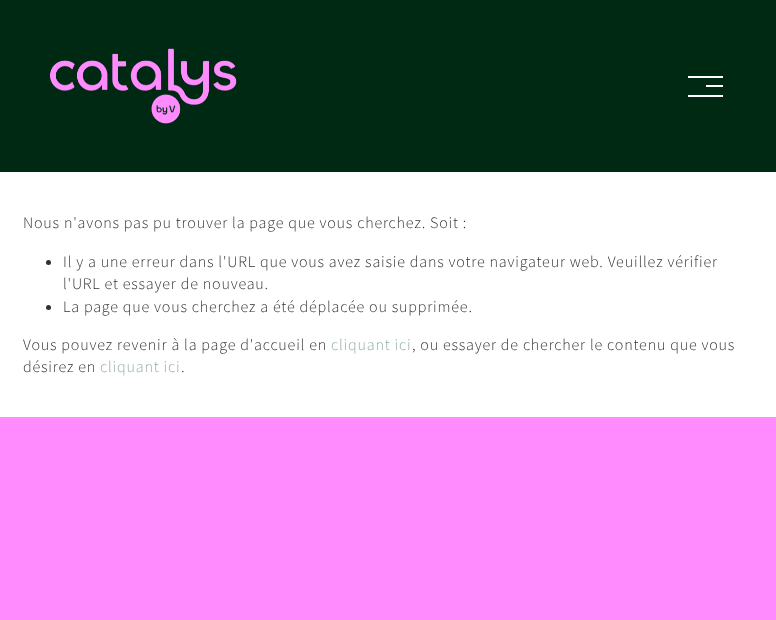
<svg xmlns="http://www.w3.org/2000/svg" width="776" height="620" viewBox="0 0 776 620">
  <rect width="100%" height="100%" fill="#fff"/>
  <path d="M0 0h776v172H0z" fill="#002913"/>
  <image x="49" y="48" width="188" height="76" href="img/1.png"/>
  <path d="M688 76h35v2H688z" fill="#fff"/>
  <path d="M706 85h17v2H706z" fill="#fff"/>
  <path d="M688 95h35v2H688z" fill="#fff"/>
  <circle cx="48.5" cy="262.5" r="2.5" fill="#343030"/>
  <circle cx="48.5" cy="307.5" r="2.5" fill="#343030"/>
  <path d="M0 417h776v203H0z" fill="#ff8bff"/>
  <g font-family="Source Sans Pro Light" font-size="16" font-weight="300" letter-spacing="0.8" fill="#343030">
    <text x="23" y="228">Nous n'avons pas pu trouver la page que vous cherchez. Soit :</text>
    <text x="63" y="267">Il y a une erreur dans l'URL que vous avez saisie dans votre navigateur web. Veuillez vérifier</text>
    <text x="63" y="289">l'URL et essayer de nouveau.</text>
    <text x="63" y="312">La page que vous cherchez a été déplacée ou supprimée.</text>
    <text x="23" y="350">Vous pouvez revenir à la page d'accueil en</text>
  </g>
  <text x="331" y="350" font-family="Source Sans Pro Light" font-size="16" font-weight="300" letter-spacing="0.8" fill="#8fada2">cliquant ici</text>
  <g font-family="Source Sans Pro Light" font-size="16" font-weight="300" letter-spacing="0.8" fill="#343030">
    <text x="412" y="350">, ou essayer de chercher le contenu que vous</text>
    <text x="23" y="372">désirez en</text>
  </g>
  <text x="100" y="372" font-family="Source Sans Pro Light" font-size="16" font-weight="300" letter-spacing="0.8" fill="#8fada2">cliquant ici</text>
  <text x="181" y="372" font-family="Source Sans Pro Light" font-size="16" font-weight="300" letter-spacing="0.8" fill="#343030">.</text>
</svg>
